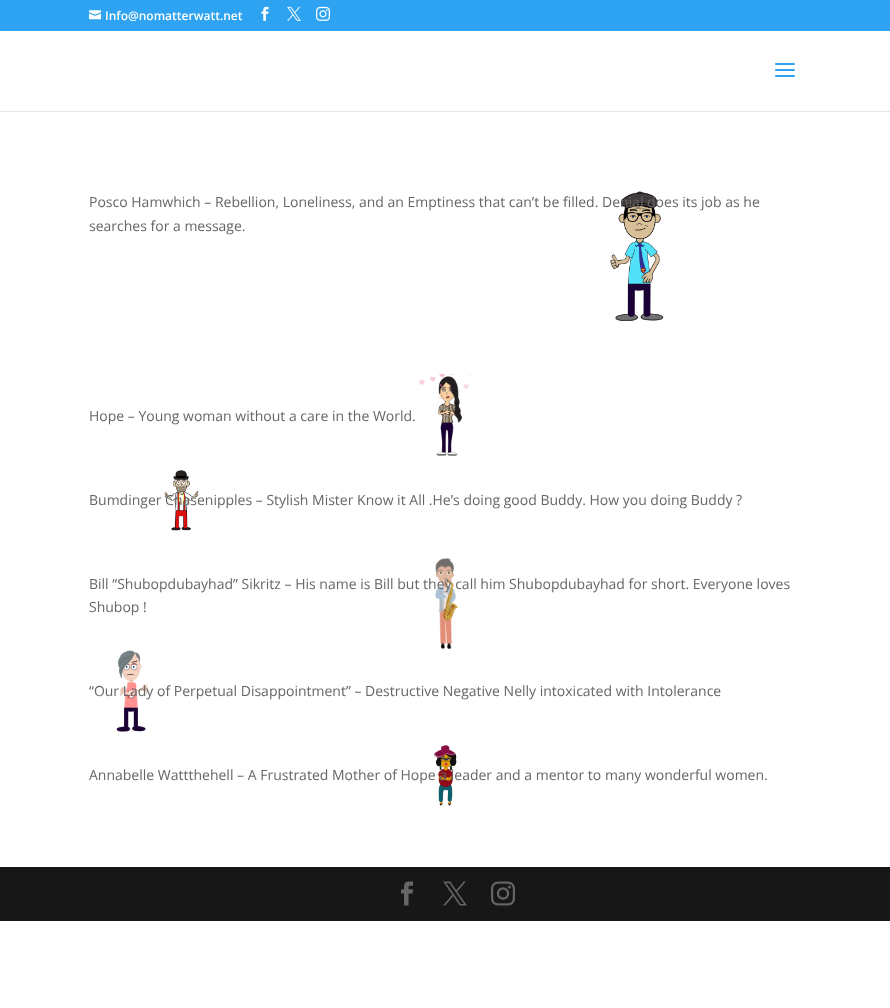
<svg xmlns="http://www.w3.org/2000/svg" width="890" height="1008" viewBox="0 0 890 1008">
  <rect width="100%" height="100%" fill="#fff"/>
  <path d="M0 0h890v31H0z" fill="#2ea3f2"/>
  <image x="89" y="10" width="12" height="10" href="img/1.png"/>
  <image x="261" y="6" width="8" height="15" href="img/2.png"/>
  <image x="287" y="6" width="14" height="15" href="img/3.png"/>
  <image x="316" y="6" width="14" height="15" href="img/4.png"/>
  <path d="M0 111h890v1H0z" fill="#e6e6e6"/>
  <image x="775" y="63" width="20" height="14" href="img/5.png"/>
  <image x="610" y="191" width="54" height="130" href="img/6.png"/>
  <image x="419" y="374" width="52" height="82" href="img/7.png"/>
  <image x="164" y="470" width="35" height="61" href="img/8.png"/>
  <image x="435" y="558" width="24" height="91" href="img/9.png"/>
  <image x="116" y="650" width="32" height="82" href="img/10.png"/>
  <image x="434" y="745" width="23" height="61" href="img/11.png"/>
  <path d="M0 867h890v54H0z" fill="#171717"/>
  <image x="401" y="881" width="12" height="25" href="img/12.png"/>
  <image x="443" y="881" width="24" height="25" href="img/13.png"/>
  <image x="491" y="881" width="24" height="25" href="img/14.png"/>
  <text x="105" y="20" font-family="Open Sans" font-size="12" font-weight="600" fill="#fff">Info@nomatterwatt.net</text>
  <g font-family="Open Sans" font-size="14" fill="#666">
    <text x="89" y="207">Posco Hamwhich – Rebellion, Loneliness, and an Emptiness that can’t be filled. Denial does its job as he</text>
    <text x="89" y="231">searches for a message.</text>
    <text x="89" y="421">Hope – Young woman without a care in the World.</text>
    <text x="89" y="505">Bumdinger Chasenipples – Stylish Mister Know it All .He’s doing good Buddy. How you doing Buddy ?</text>
    <text x="89" y="589">Bill “Shubopdubayhad” Sikritz – His name is Bill but they call him Shubopdubayhad for short. Everyone loves</text>
    <text x="89" y="612">Shubop !</text>
    <text x="89" y="696">“Our Lady of Perpetual Disappointment” – Destructive Negative Nelly intoxicated with Intolerance</text>
    <text x="89" y="780">Annabelle Wattthehell – A Frustrated Mother of Hope a leader and a mentor to many wonderful women.</text>
  </g>
</svg>
